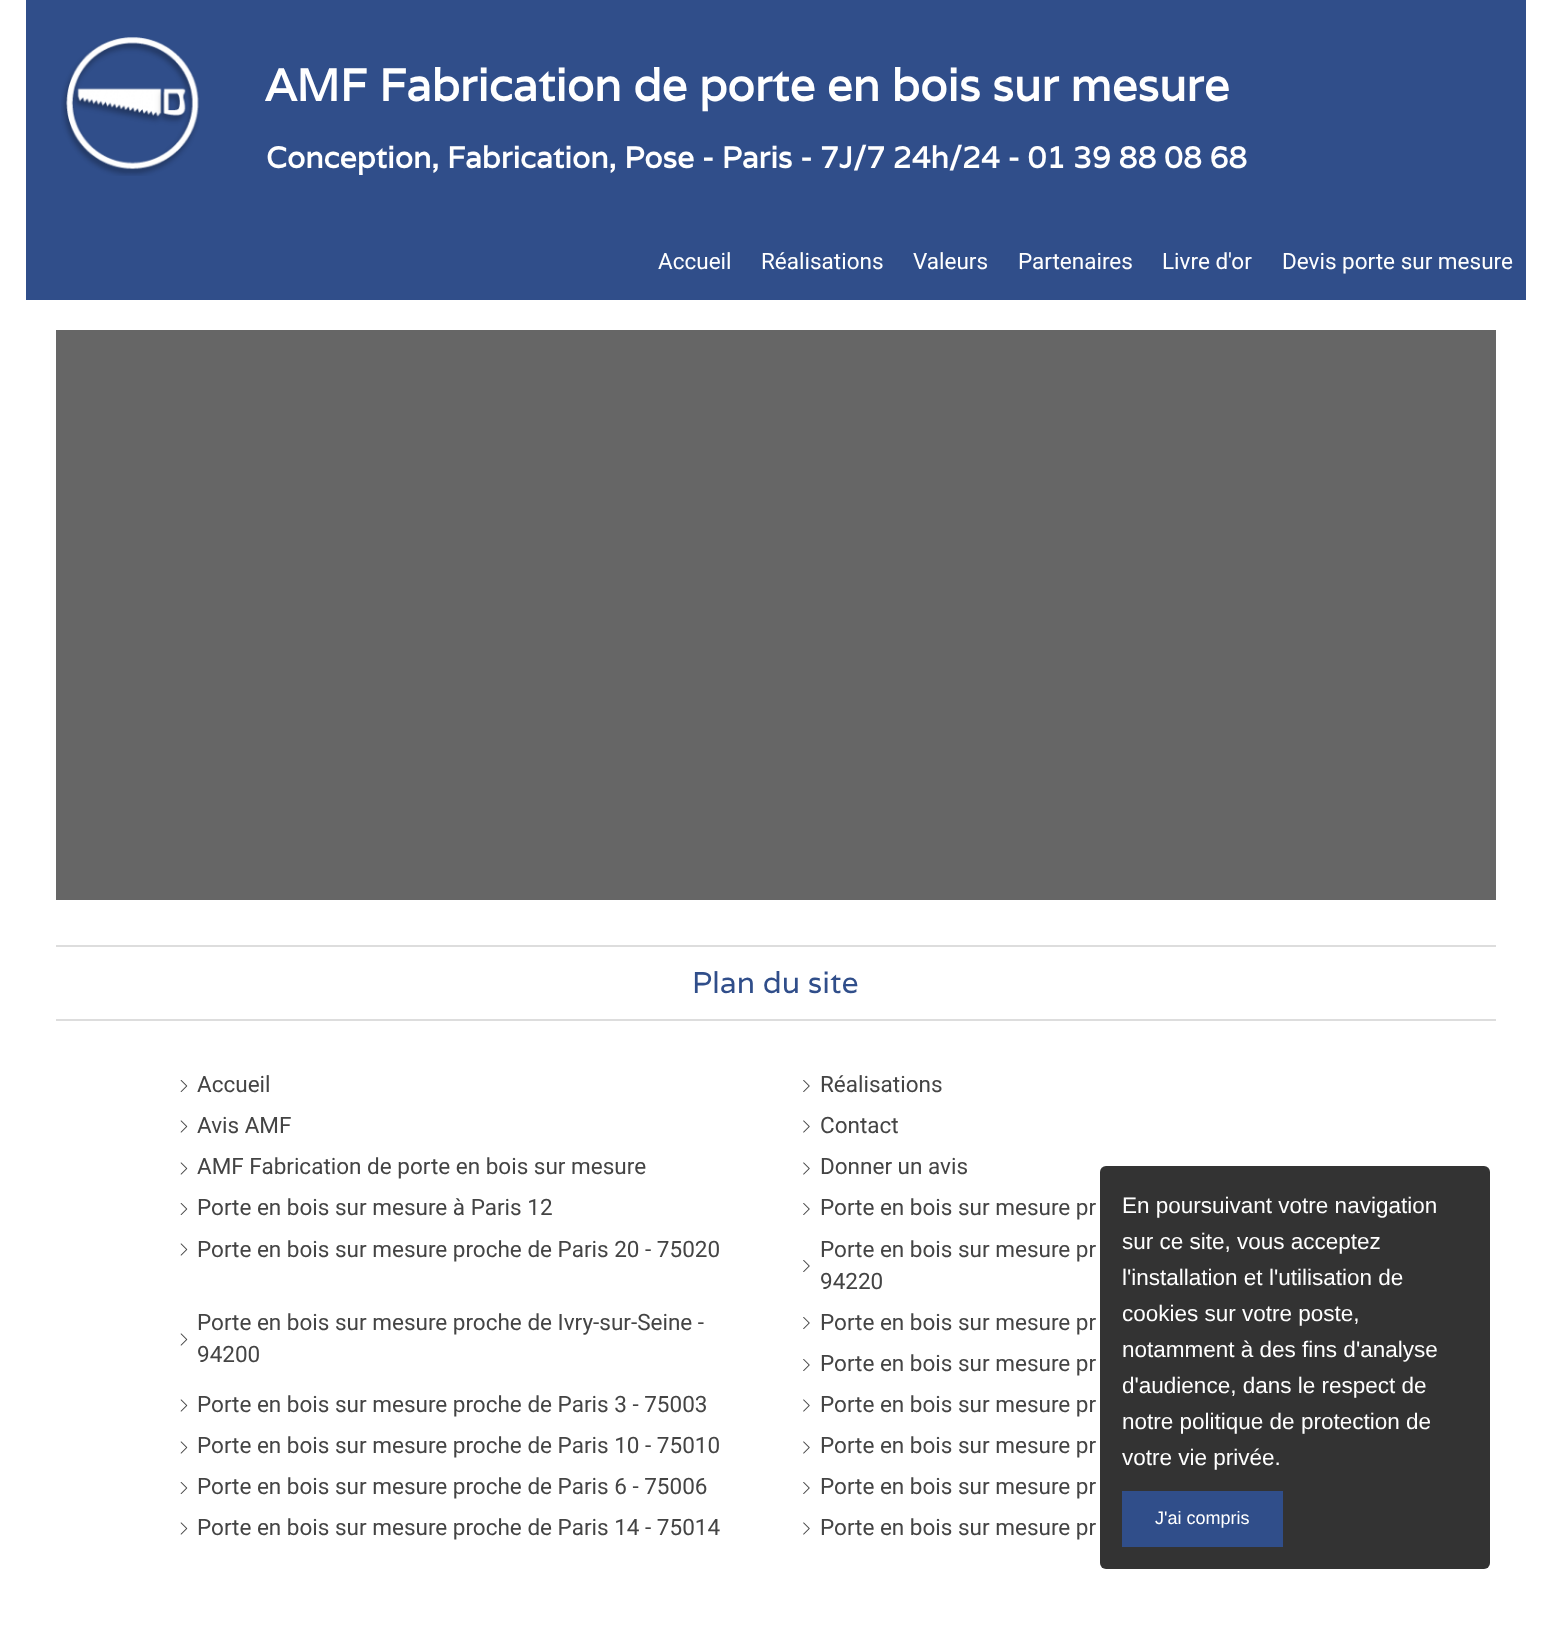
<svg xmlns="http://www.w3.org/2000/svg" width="1549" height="1629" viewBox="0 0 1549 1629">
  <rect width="100%" height="100%" fill="#fff"/>
  <path d="M26 0h1500v300H26z" fill="#304e8a"/>
  <image x="61" y="37" width="139" height="139" href="img/1.png"/>
  <path d="M56 330h1440v570H56z" fill="#666"/>
  <path d="M56 945h1440v2H56z" fill="#ddd"/>
  <path d="M56 1019h1440v2H56z" fill="#ddd"/>
  <image x="180" y="1080" width="8" height="12" href="img/2.png"/>
  <image x="803" y="1080" width="7" height="12" href="img/3.png"/>
  <image x="180" y="1120" width="8" height="13" href="img/4.png"/>
  <image x="803" y="1120" width="7" height="13" href="img/5.png"/>
  <image x="180" y="1162" width="8" height="13" href="img/4.png"/>
  <image x="803" y="1162" width="7" height="13" href="img/5.png"/>
  <image x="180" y="1203" width="8" height="12" href="img/2.png"/>
  <image x="803" y="1203" width="7" height="12" href="img/3.png"/>
  <image x="180" y="1243" width="8" height="13" href="img/4.png"/>
  <image x="803" y="1260" width="7" height="12" href="img/3.png"/>
  <image x="180" y="1333" width="8" height="13" href="img/4.png"/>
  <image x="803" y="1317" width="7" height="12" href="img/3.png"/>
  <image x="803" y="1359" width="7" height="12" href="img/3.png"/>
  <image x="180" y="1399" width="8" height="13" href="img/4.png"/>
  <image x="803" y="1399" width="7" height="13" href="img/5.png"/>
  <image x="180" y="1441" width="8" height="13" href="img/4.png"/>
  <image x="803" y="1441" width="7" height="13" href="img/5.png"/>
  <image x="180" y="1482" width="8" height="12" href="img/2.png"/>
  <image x="803" y="1482" width="7" height="12" href="img/3.png"/>
  <image x="180" y="1522" width="8" height="13" href="img/4.png"/>
  <image x="803" y="1522" width="7" height="13" href="img/5.png"/>
  <rect x="1100" y="1166" width="390" height="403" rx="6" fill="#000000cc"/>
  <path d="M1122 1491h161v56H1122z" fill="#304e8a"/>
  <text x="265" y="101" font-family="Varela" font-size="45" font-weight="bold" fill="#fff">AMF Fabrication de porte en bois sur mesure</text>
  <text x="266" y="168" font-family="Varela" font-size="30" font-weight="bold" fill="#fff">Conception, Fabrication, Pose - Paris - 7J/7 24h/24 - 01 39 88 08 68</text>
  <g font-family="Roboto" font-size="22.5" fill="#fff">
    <text x="658" y="269">Accueil</text>
    <text x="761" y="269">Réalisations</text>
    <text x="913" y="269">Valeurs</text>
    <text x="1018" y="269">Partenaires</text>
    <text x="1162" y="269">Livre d'or</text>
    <text x="1282" y="269">Devis porte sur mesure</text>
  </g>
  <text x="692" y="993" font-family="Varela" font-size="30" fill="#304e8a">Plan du site</text>
  <g font-family="Roboto" font-size="22.5" fill="#444">
    <text x="197" y="1092">Accueil</text>
    <text x="820" y="1092">Réalisations</text>
    <text x="197" y="1133">Avis AMF</text>
    <text x="820" y="1133">Contact</text>
    <text x="197" y="1174">AMF Fabrication de porte en bois sur mesure</text>
    <text x="820" y="1174">Donner un avis</text>
    <text x="197" y="1215">Porte en bois sur mesure à Paris 12</text>
    <text x="820" y="1215">Porte en bois sur mesure pr</text>
    <text x="197" y="1257">Porte en bois sur mesure proche de Paris 20 - 75020</text>
    <text x="820" y="1257">Porte en bois sur mesure pr</text>
    <text x="820" y="1289">94220</text>
    <text x="197" y="1330">Porte en bois sur mesure proche de Ivry-sur-Seine -</text>
    <text x="197" y="1362">94200</text>
    <text x="820" y="1330">Porte en bois sur mesure pr</text>
    <text x="820" y="1371">Porte en bois sur mesure pr</text>
    <text x="197" y="1412">Porte en bois sur mesure proche de Paris 3 - 75003</text>
    <text x="820" y="1412">Porte en bois sur mesure pr</text>
    <text x="197" y="1453">Porte en bois sur mesure proche de Paris 10 - 75010</text>
    <text x="820" y="1453">Porte en bois sur mesure pr</text>
    <text x="197" y="1494">Porte en bois sur mesure proche de Paris 6 - 75006</text>
    <text x="820" y="1494">Porte en bois sur mesure pr</text>
    <text x="197" y="1535">Porte en bois sur mesure proche de Paris 14 - 75014</text>
    <text x="820" y="1535">Porte en bois sur mesure pr</text>
  </g>
  <g font-family="Liberation Sans" font-size="22.5" fill="#fff">
    <text x="1122" y="1213">En poursuivant votre navigation</text>
    <text x="1122" y="1249">sur ce site, vous acceptez</text>
    <text x="1122" y="1285">l'installation et l'utilisation de</text>
    <text x="1122" y="1321">cookies sur votre poste,</text>
    <text x="1122" y="1357">notamment à des fins d'analyse</text>
    <text x="1122" y="1393">d'audience, dans le respect de</text>
    <text x="1122" y="1429">notre politique de protection de</text>
    <text x="1122" y="1465">votre vie privée.</text>
  </g>
  <text x="1155" y="1524" font-family="Liberation Sans" font-size="18" fill="#fff">J'ai compris</text>
</svg>
